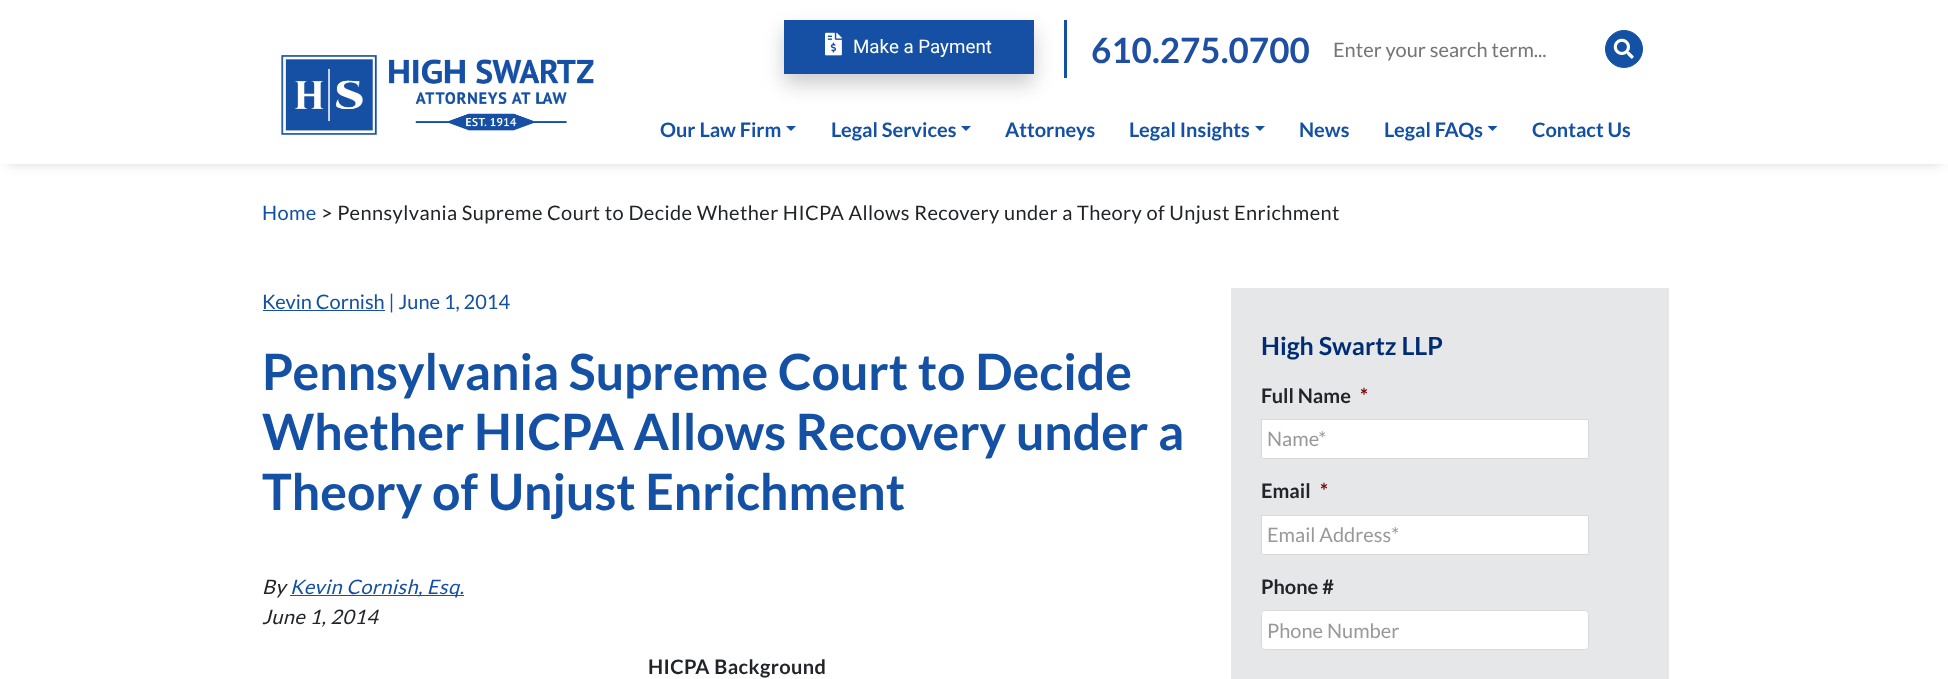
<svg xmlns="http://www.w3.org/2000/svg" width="1948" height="679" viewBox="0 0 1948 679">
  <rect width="100%" height="100%" fill="#fff"/>
  <path d="M8 13h1933v148H8z" fill="#00000040" filter="blur(7px)"/>
  <path d="M0 1h1948v163H0z" fill="#fff"/>
  <path d="M784 30h250v54H784z" fill="#00000033" filter="blur(10px)"/>
  <path d="M784 20h250v54H784z" fill="#1650a4"/>
  <image x="825" y="32" width="17" height="24" href="img/1.png"/>
  <path d="M1064 20h3v58H1064z" fill="#1450a3"/>
  <circle cx="1624" cy="49" r="18.5" fill="#1450a3" stroke="#1450a3"/>
  <image x="1613" y="38" width="21" height="21" href="img/2.png"/>
  <image x="281" y="55" width="313" height="80" href="img/3.png"/>
  <path d="M786 126H796L791 131Z" fill="#1450a3"/>
  <path d="M961 126H971L966 131Z" fill="#1450a3"/>
  <path d="M1255 126H1265L1260 131Z" fill="#1450a3"/>
  <path d="M1487.5 126H1497.5L1492.5 131Z" fill="#1450a3"/>
  <path d="M263 310h122v1H263z" fill="#1450a3"/>
  <path d="M290 595h174v1H290z" fill="#1450a3"/>
  <path d="M1231 288h438v391H1231z" fill="#e6e7e8"/>
  <path d="M1261.5 419.5h327v39H1261.5z" fill="#fff" stroke="#d9d9d9"/>
  <path d="M1261.5 515.5h327v39H1261.5z" fill="#fff" stroke="#d9d9d9"/>
  <rect x="1261" y="610" width="328" height="40" rx="4" fill="#fff"/>
  <rect x="1261.5" y="610.5" width="327" height="39" rx="3.5" fill="none" stroke="#00000026"/>
  <text x="853" y="53" font-family="Roboto" font-size="18.75" fill="#fff">Make a Payment</text>
  <text x="1091" y="63" font-family="Lato" font-size="35" font-weight="bold" fill="#1e4fa2">610.275.0700</text>
  <text x="1333" y="57" font-family="Lato" font-size="20" fill="#757575">Enter your search term...</text>
  <g font-family="Lato" font-size="20" font-weight="bold" fill="#1450a3">
    <text x="660" y="137">Our Law Firm</text>
    <text x="831" y="137">Legal Services</text>
    <text x="1005" y="137">Attorneys</text>
    <text x="1129" y="137">Legal Insights</text>
    <text x="1299" y="137">News</text>
    <text x="1384" y="137">Legal FAQs</text>
    <text x="1532" y="137">Contact Us</text>
  </g>
  <text x="262" y="220" font-family="Lato" font-size="20" letter-spacing="0.4" fill="#1450a3">Home</text>
  <text x="321" y="220" font-family="Lato" font-size="20" letter-spacing="0.4" fill="#212529">&gt; Pennsylvania Supreme Court to Decide Whether HICPA Allows Recovery under a Theory of Unjust Enrichment</text>
  <text x="262" y="309" font-family="Lato" font-size="20" fill="#1450a3">Kevin Cornish | June 1, 2014</text>
  <g font-family="Lato" font-size="50" font-weight="bold" fill="#1450a3">
    <text x="262" y="390">Pennsylvania Supreme Court to Decide</text>
    <text x="262" y="450">Whether HICPA Allows Recovery under a</text>
    <text x="262" y="510">Theory of Unjust Enrichment</text>
  </g>
  <text x="262" y="594" font-family="Lato" font-size="20" font-style="italic" letter-spacing="0.4" fill="#212529">By</text>
  <text x="290" y="594" font-family="Lato" font-size="20" font-style="italic" letter-spacing="0.4" fill="#1450a3">Kevin Cornish, Esq.</text>
  <text x="262" y="624" font-family="Lato" font-size="20" font-style="italic" letter-spacing="0.4" fill="#212529">June 1, 2014</text>
  <text x="648" y="674" font-family="Lato" font-size="20" font-weight="bold" letter-spacing="0.4" fill="#212529">HICPA Background</text>
  <text x="1261" y="355" font-family="Lato" font-size="25" font-weight="bold" fill="#002c74">High Swartz LLP</text>
  <text x="1261" y="403" font-family="Lato" font-size="20" font-weight="bold" fill="#212529">Full Name</text>
  <text x="1360" y="403" font-family="Lato" font-size="20" font-weight="bold" fill="#790000">*</text>
  <text x="1267" y="446" font-family="Lato" font-size="20" fill="#999">Name*</text>
  <text x="1261" y="498" font-family="Lato" font-size="20" font-weight="bold" fill="#212529">Email</text>
  <text x="1320" y="498" font-family="Lato" font-size="20" font-weight="bold" fill="#790000">*</text>
  <text x="1267" y="542" font-family="Lato" font-size="20" fill="#999">Email Address*</text>
  <text x="1261" y="594" font-family="Lato" font-size="20" font-weight="bold" fill="#212529">Phone #</text>
  <text x="1267" y="638" font-family="Lato" font-size="20" fill="#999">Phone Number</text>
</svg>
